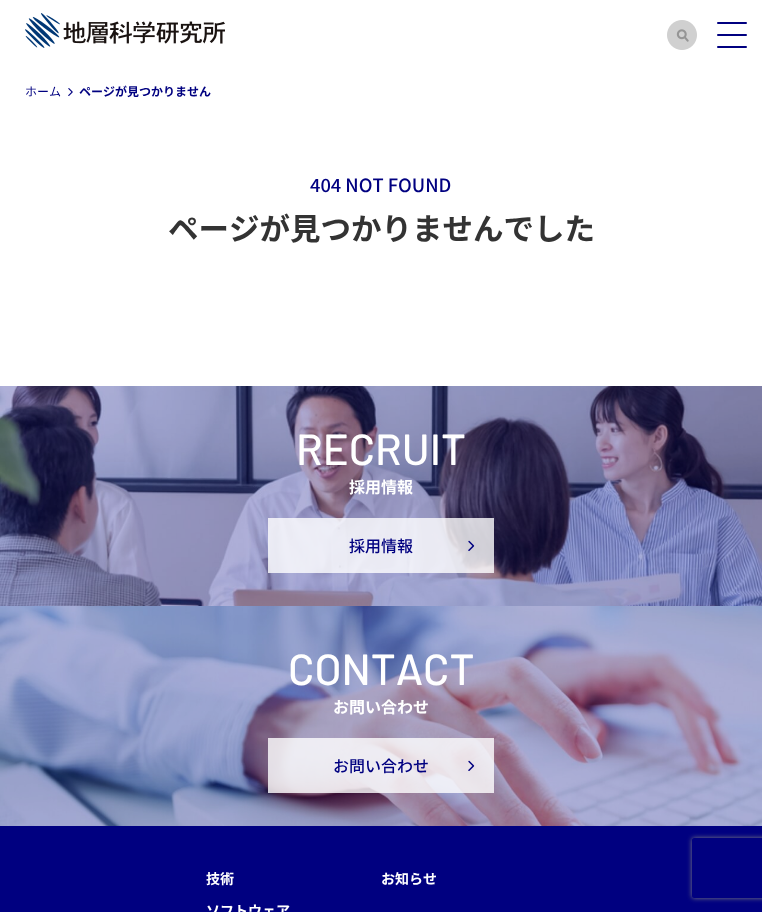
<svg xmlns="http://www.w3.org/2000/svg" width="762" height="912" viewBox="0 0 762 912">
  <style>*{font-kerning:none!important;font-variant-ligatures:none!important}</style>
  <defs>
    <clipPath id="clip1"><path d="M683 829H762V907H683ZM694 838H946C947 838 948 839 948 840V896C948 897 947 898 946 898H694C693 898 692 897 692 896V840C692 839 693 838 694 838Z" clip-rule="evenodd"/></clipPath>
  </defs>
  <rect width="100%" height="100%" fill="#fff"/>
  <image x="25" y="13" width="200" height="35" href="img/1.png"/>
  <image x="667" y="20" width="30" height="30" href="img/2.png"/>
  <rect x="717" y="34" width="30" height="2" rx="1" fill="#000080"/>
  <rect x="717" y="22" width="30" height="2" rx="1" fill="#000080"/>
  <rect x="717" y="46" width="30" height="2" rx="1" fill="#000080"/>
  <image x="68" y="88" width="5" height="8" href="img/3.png"/>
  <image x="0" y="386" width="762" height="220" href="img/4.png"/>
  <path d="M268 518h226v55H268z" fill="#ffffffcc"/>
  <image x="468" y="540" width="7" height="11" href="img/5.png"/>
  <image x="0" y="606" width="762" height="220" href="img/6.png"/>
  <path d="M268 738h226v55H268z" fill="#ffffffcc"/>
  <image x="468" y="760" width="7" height="11" href="img/7.png"/>
  <path d="M0 826h762v86H0z" fill="#000080"/>
  <g clip-path="url(#clip1)">
    <rect x="692" y="838" width="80" height="60" rx="2" fill="#808080" filter="blur(2.5px)"/>
  </g>
  <text x="25" y="96" font-family="Noto Sans JP" font-size="12" fill="#000080">ホーム</text>
  <text x="79" y="96" font-family="Noto Sans JP" font-size="12" font-weight="bold" fill="#000080">ページが見つかりません</text>
  <text x="310" y="192" font-family="Noto Sans JP" font-size="18.25" font-weight="500" fill="#000080">404 NOT FOUND</text>
  <text x="168" y="240" font-family="Noto Sans JP" font-size="30.5" font-weight="bold" fill="#333">ページが見つかりませんでした</text>
  <text x="296" y="465" font-family="Barlow" font-size="43.5" font-weight="500" fill="#fff">RECRUIT</text>
  <text x="349" y="493" font-family="Noto Sans JP" font-size="16" font-weight="bold" fill="#fff">採用情報</text>
  <text x="349" y="552" font-family="Noto Sans JP" font-size="16" font-weight="500" fill="#000080">採用情報</text>
  <text x="288" y="685" font-family="Barlow" font-size="43.5" font-weight="500" fill="#fff">CONTACT</text>
  <text x="333" y="713" font-family="Noto Sans JP" font-size="16" font-weight="bold" fill="#fff">お問い合わせ</text>
  <text x="333" y="772" font-family="Noto Sans JP" font-size="16" font-weight="500" fill="#000080">お問い合わせ</text>
  <g font-family="Noto Sans JP" font-size="14" font-weight="bold" fill="#fff">
    <text x="206" y="884">技術</text>
    <text x="381" y="884">お知らせ</text>
    <text x="206" y="916">ソフトウェア</text>
  </g>
</svg>
